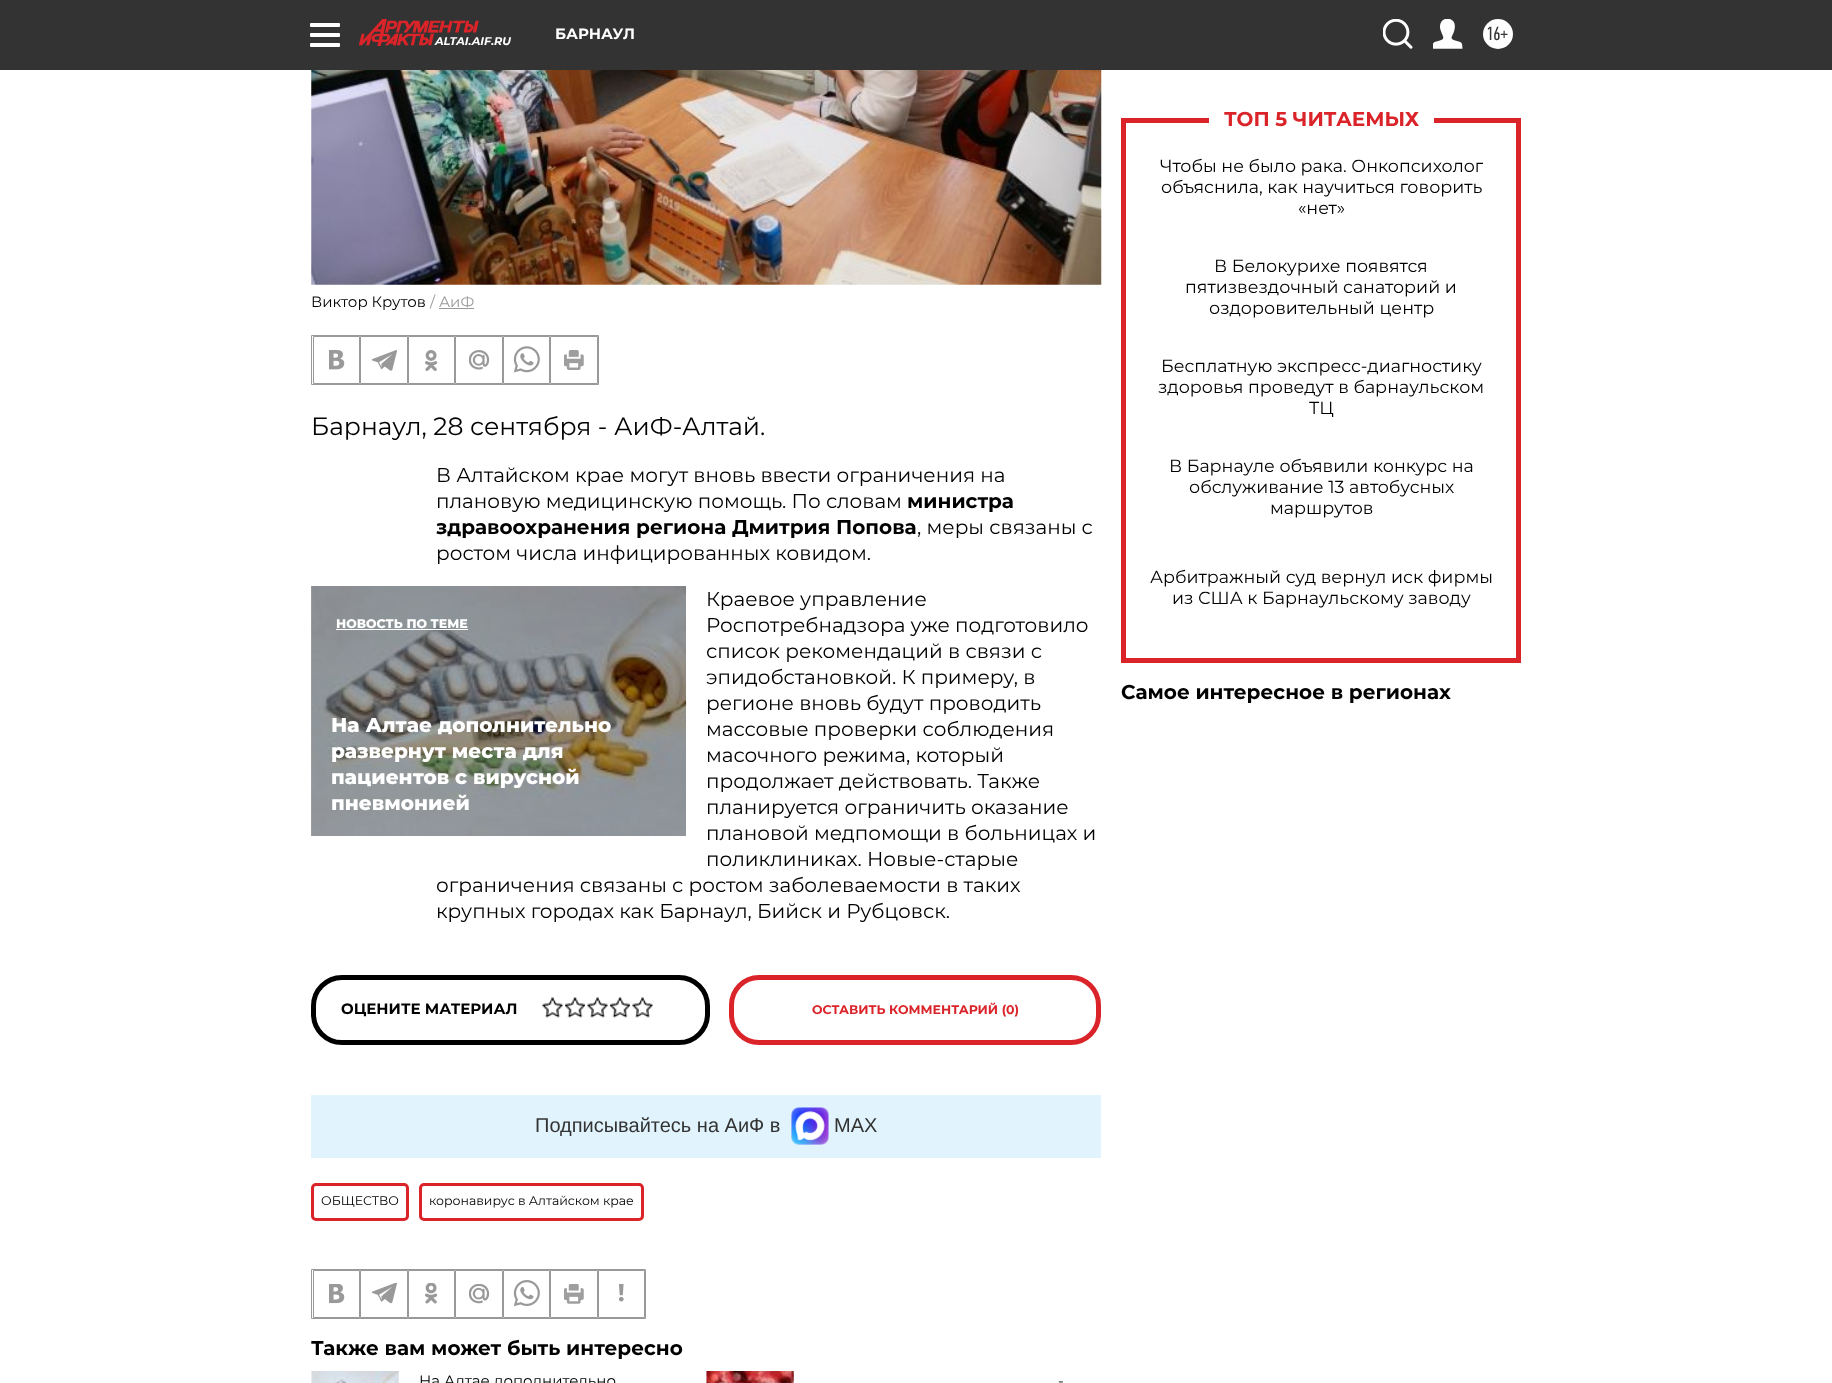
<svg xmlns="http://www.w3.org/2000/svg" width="1832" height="1383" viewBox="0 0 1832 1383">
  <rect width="100%" height="100%" fill="#fff"/>
  <path d="M311 586h1v250H311z" fill="#a6a6a6"/>
  <path d="M0 0h1832v70H0z" fill="#333"/>
  <rect x="310" y="23" width="30" height="4" rx="1" fill="#fff"/>
  <rect x="310" y="33" width="30" height="4" rx="1" fill="#fff"/>
  <rect x="310" y="43" width="30" height="4" rx="1" fill="#fff"/>
  <image x="1383" y="19" width="30" height="30" href="img/1.png"/>
  <image x="1433" y="19" width="30" height="30" href="img/2.png"/>
  <circle cx="1498" cy="34" r="15" fill="#fff"/>
  <image x="359" y="19" width="120" height="27" href="img/3.png"/>
  <image x="311" y="70" width="791" height="215" href="img/4.png"/>
  <path d="M439 308h35v1H439z" fill="#999"/>
  <path d="M311.5 335.5h287v49H311.5z" fill="none" stroke="#999"/>
  <path d="M313.5 336.5h46v47H313.5z" fill="none" stroke="#999"/>
  <image x="329" y="350" width="16" height="20" href="img/5.png"/>
  <path d="M360.5 336.5h47v47H360.5z" fill="none" stroke="#999"/>
  <image x="371" y="350" width="26" height="21" href="img/6.png"/>
  <path d="M408.5 336.5h46v47H408.5z" fill="none" stroke="#999"/>
  <image x="425" y="350" width="13" height="21" href="img/7.png"/>
  <path d="M455.5 336.5h47v47H455.5z" fill="none" stroke="#999"/>
  <image x="469" y="350" width="21" height="20" href="img/8.png"/>
  <path d="M503.5 336.5h46v47H503.5z" fill="none" stroke="#999"/>
  <image x="513" y="346" width="27" height="27" href="img/9.png"/>
  <path d="M550.5 336.5h47v47H550.5z" fill="none" stroke="#999"/>
  <image x="564" y="350" width="20" height="20" href="img/10.png"/>
  <image x="311" y="586" width="376" height="250" href="img/11.png"/>
  <path d="M336 629h132v1H336z" fill="#fff"/>
  <rect x="313.5" y="977.5" width="394" height="65" rx="28.5" fill="none" stroke="#000" stroke-width="5"/>
  <image x="542" y="997" width="21" height="21" href="img/12.png"/>
  <image x="565" y="997" width="20" height="21" href="img/13.png"/>
  <image x="587" y="997" width="21" height="21" href="img/12.png"/>
  <image x="610" y="997" width="20" height="21" href="img/14.png"/>
  <image x="632" y="997" width="21" height="21" href="img/15.png"/>
  <rect x="731.5" y="977.5" width="367" height="65" rx="27.5" fill="none" stroke="#da2429" stroke-width="5"/>
  <path d="M311 1095h790v63H311z" fill="#e1f3fc"/>
  <image x="791" y="1107" width="38" height="38" href="img/16.png"/>
  <rect x="312.5" y="1184.5" width="95" height="35" rx="3.5" fill="none" stroke="#da2429" stroke-width="3"/>
  <rect x="420.5" y="1184.5" width="222" height="35" rx="3.5" fill="none" stroke="#da2429" stroke-width="3"/>
  <path d="M311.5 1269.5h334v49H311.5z" fill="none" stroke="#999"/>
  <path d="M313.5 1270.5h46v47H313.5z" fill="none" stroke="#999"/>
  <image x="329" y="1284" width="16" height="20" href="img/17.png"/>
  <path d="M360.5 1270.5h47v47H360.5z" fill="none" stroke="#999"/>
  <image x="371" y="1283" width="26" height="21" href="img/18.png"/>
  <path d="M408.5 1270.5h46v47H408.5z" fill="none" stroke="#999"/>
  <image x="425" y="1283" width="13" height="21" href="img/19.png"/>
  <path d="M455.5 1270.5h47v47H455.5z" fill="none" stroke="#999"/>
  <image x="469" y="1284" width="21" height="20" href="img/20.png"/>
  <path d="M503.5 1270.5h46v47H503.5z" fill="none" stroke="#999"/>
  <image x="513" y="1280" width="27" height="27" href="img/21.png"/>
  <path d="M550.5 1270.5h47v47H550.5z" fill="none" stroke="#999"/>
  <image x="564" y="1284" width="20" height="20" href="img/22.png"/>
  <path d="M598.5 1270.5h46v47H598.5z" fill="none" stroke="#999"/>
  <image x="619" y="1284" width="5" height="18" href="img/23.png"/>
  <image x="311" y="1371" width="88" height="12" href="img/24.png"/>
  <image x="706" y="1371" width="88" height="12" href="img/25.png"/>
  <path d="M1516 118h5v545H1516z" fill="#da2429"/>
  <path d="M1121 658h400v5H1121z" fill="#da2429"/>
  <path d="M1121 118h5v545H1121z" fill="#da2429"/>
  <path d="M1121 118h88v5H1121z" fill="#da2429"/>
  <path d="M1434 118h87v5H1434z" fill="#da2429"/>
  <text x="555" y="39" font-family="Montserrat" font-size="15" font-weight="bold" fill="#fff">БАРНАУЛ</text>
  <text x="1486" y="40" font-family="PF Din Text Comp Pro" font-size="19" fill="#333">16+</text>
  <text x="435" y="45" font-family="Montserrat" font-size="11.25" font-weight="bold" font-style="italic" fill="#fff">ALTAI.AIF.RU</text>
  <text x="311" y="307" font-family="Montserrat" font-size="15" fill="#000">Виктор Крутов</text>
  <text x="430" y="307" font-family="Montserrat" font-size="15" fill="#999">/ АиФ</text>
  <text x="311" y="435" font-family="Montserrat" font-size="25" fill="#000">Барнаул, 28 сентября - АиФ-Алтай.</text>
  <g font-family="Montserrat" font-size="20" fill="#000">
    <text x="436" y="482">В Алтайском крае могут вновь ввести ограничения на</text>
    <text x="436" y="508">плановую медицинскую помощь. По словам</text>
  </g>
  <g font-family="Montserrat" font-size="20" font-weight="bold" fill="#000">
    <text x="907" y="508">министра</text>
    <text x="436" y="534">здравоохранения региона Дмитрия Попова</text>
  </g>
  <g font-family="Montserrat" font-size="20" fill="#000">
    <text x="917" y="534">, меры связаны с</text>
    <text x="436" y="560">ростом числа инфицированных ковидом.</text>
    <text x="706" y="606">Краевое управление</text>
  </g>
  <text x="336" y="628" font-family="Montserrat" font-size="12.5" font-weight="800" fill="#fff">НОВОСТЬ ПО ТЕМЕ</text>
  <g font-family="Montserrat" font-size="20" font-weight="800" fill="#fff">
    <text x="331" y="732">На Алтае дополнительно</text>
    <text x="331" y="758">развернут места для</text>
    <text x="331" y="784">пациентов с вирусной</text>
    <text x="331" y="810">пневмонией</text>
  </g>
  <g font-family="Montserrat" font-size="20" fill="#000">
    <text x="706" y="632">Роспотребнадзора уже подготовило</text>
    <text x="706" y="658">список рекомендаций в связи с</text>
    <text x="706" y="684">эпидобстановкой. К примеру, в</text>
    <text x="706" y="710">регионе вновь будут проводить</text>
    <text x="706" y="736">массовые проверки соблюдения</text>
    <text x="706" y="762">масочного режима, который</text>
    <text x="706" y="788">продолжает действовать. Также</text>
    <text x="706" y="814">планируется ограничить оказание</text>
    <text x="706" y="840">плановой медпомощи в больницах и</text>
    <text x="706" y="866">поликлиниках. Новые-старые</text>
    <text x="436" y="892">ограничения связаны с ростом заболеваемости в таких</text>
    <text x="436" y="918">крупных городах как Барнаул, Бийск и Рубцовск.</text>
  </g>
  <text x="341" y="1014" font-family="Montserrat" font-size="15" font-weight="bold" fill="#000">ОЦЕНИТЕ МАТЕРИАЛ</text>
  <text x="812" y="1014" font-family="Montserrat" font-size="12.5" font-weight="bold" fill="#da2429">ОСТАВИТЬ КОММЕНТАРИЙ (0)</text>
  <g font-family="Liberation Sans" font-size="20" fill="#333">
    <text x="535" y="1132">Подписывайтесь на АиФ в</text>
    <text x="834" y="1132">MAX</text>
  </g>
  <g font-family="Montserrat" font-size="12.5" fill="#000">
    <text x="321" y="1205">ОБЩЕСТВО</text>
    <text x="429" y="1205">коронавирус в Алтайском крае</text>
  </g>
  <text x="311" y="1355" font-family="Montserrat" font-size="20" font-weight="bold" fill="#000">Также вам может быть интересно</text>
  <g font-family="Montserrat" font-size="15" fill="#000">
    <text x="419" y="1386">На Алтае дополнительно</text>
    <text x="1058" y="1386">-</text>
  </g>
  <text x="1224" y="126" font-family="Montserrat" font-size="20" font-weight="bold" fill="#da2429">ТОП 5 ЧИТАЕМЫХ</text>
  <g font-family="Montserrat" font-size="17.5" fill="#000">
    <text x="1160" y="172">Чтобы не было рака. Онкопсихолог</text>
    <text x="1161" y="193">объяснила, как научиться говорить</text>
    <text x="1298" y="214">«нет»</text>
    <text x="1214" y="272">В Белокурихе появятся</text>
    <text x="1185" y="293">пятизвездочный санаторий и</text>
    <text x="1209" y="314">оздоровительный центр</text>
    <text x="1161" y="372">Бесплатную экспресс-диагностику</text>
    <text x="1158" y="393">здоровья проведут в барнаульском</text>
    <text x="1309" y="414">ТЦ</text>
    <text x="1169" y="472">В Барнауле объявили конкурс на</text>
    <text x="1189" y="493">обслуживание 13 автобусных</text>
    <text x="1270" y="514">маршрутов</text>
    <text x="1150" y="583">Арбитражный суд вернул иск фирмы</text>
    <text x="1172" y="604">из США к Барнаульскому заводу</text>
  </g>
  <text x="1121" y="699" font-family="Montserrat" font-size="20" font-weight="bold" fill="#000">Самое интересное в регионах</text>
</svg>
